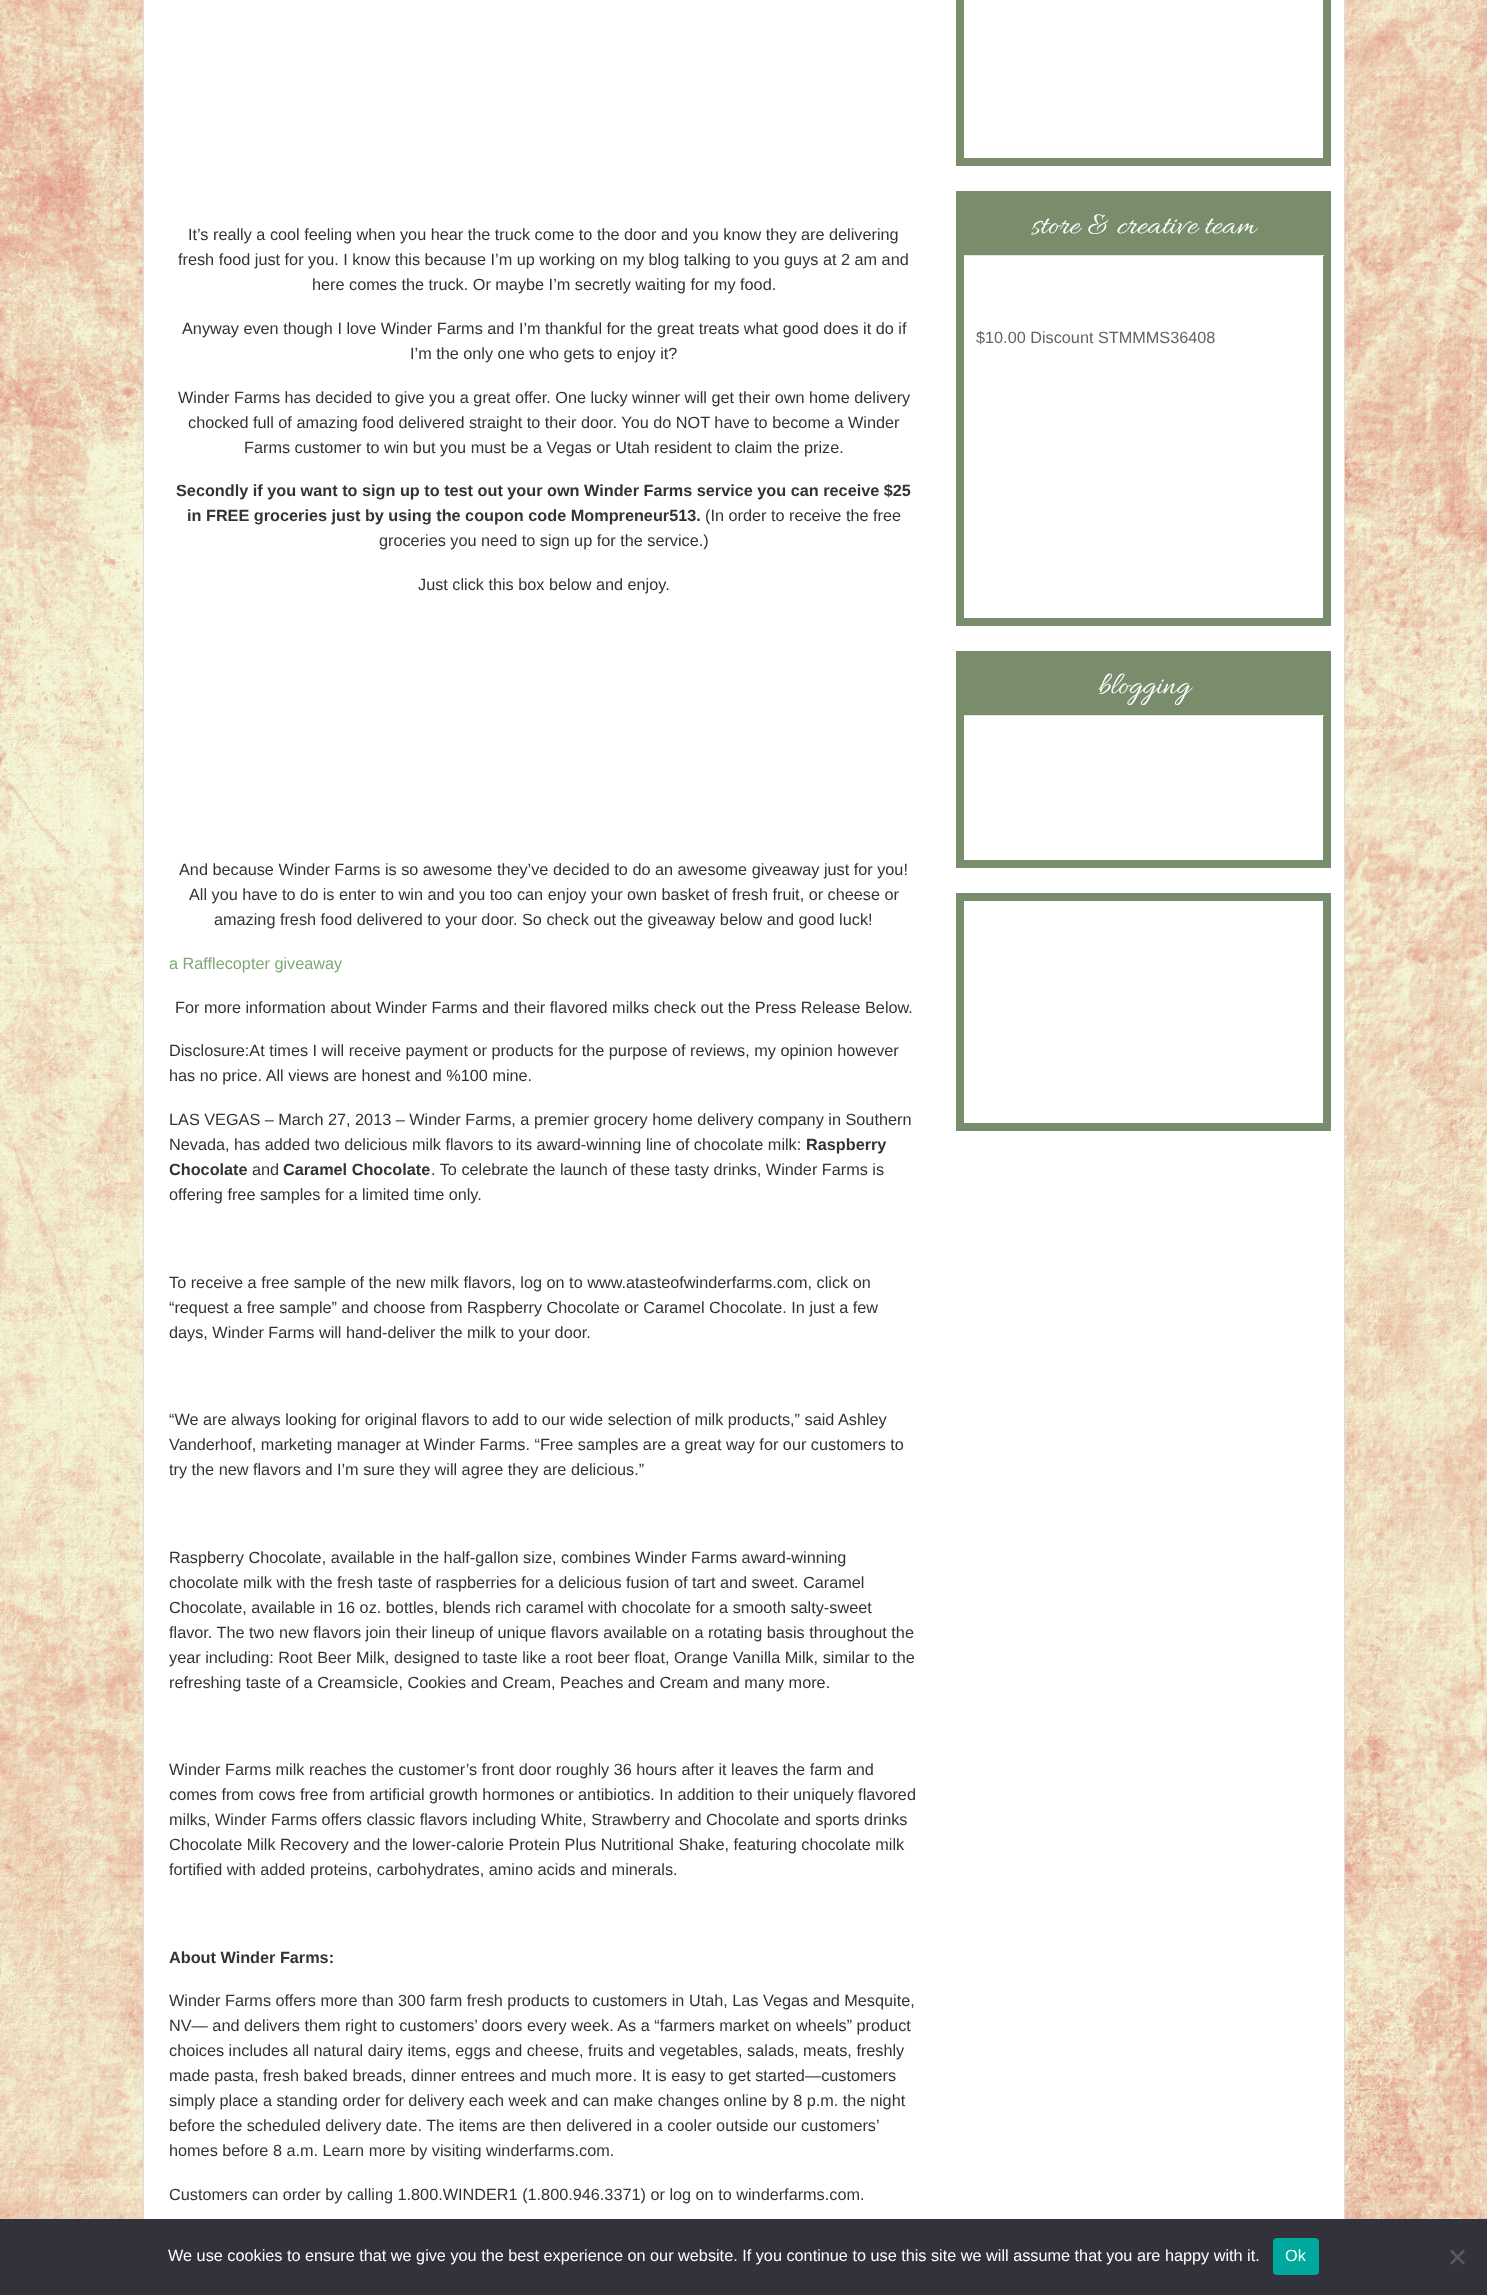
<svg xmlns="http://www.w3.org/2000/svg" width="1487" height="2295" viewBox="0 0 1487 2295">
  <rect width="100%" height="100%" fill="#fff"/>
  <image x="0" y="0" width="1487" height="2219" href="img/1.png"/>
  <path d="M144 0h1200v2219H144z" fill="#fff"/>
  <path d="M143.5 -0.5h1201v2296H143.5z" fill="none" stroke="#ddd"/>
  <path d="M960 -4h367v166H960z" fill="none" stroke="#798d6c" stroke-width="8"/>
  <path d="M960 195h367v427H960z" fill="none" stroke="#798d6c" stroke-width="8"/>
  <path d="M964 199h359v56H964z" fill="#798d6c"/>
  <path d="M964 255h360v1H964z" fill="#e6e6e6"/>
  <path d="M960 655h367v209H960z" fill="none" stroke="#798d6c" stroke-width="8"/>
  <path d="M964 659h359v56H964z" fill="#798d6c"/>
  <path d="M964 715h360v1H964z" fill="#e6e6e6"/>
  <path d="M960 897h367v230H960z" fill="none" stroke="#798d6c" stroke-width="8"/>
  <path d="M0 2219h1487v76H0z" fill="#32323a"/>
  <rect x="1273" y="2238" width="46" height="37" rx="4" fill="#00a99d"/>
  <path d="M1463 2249.5L1465 2251.5L1452 2264.5L1450 2263Z" fill="#59595d"/>
  <path d="M1450 2251.5L1452 2249.5L1465 2263L1463 2264.5Z" fill="#59595d"/>
  <g font-family="Liberation Sans" font-size="16.25" fill="#333">
    <text x="188" y="240">It’s really a cool feeling when you hear the truck come to the door and you know they are delivering</text>
    <text x="178" y="265">fresh food just for you. I know this because I’m up working on my blog talking to you guys at 2 am and</text>
    <text x="312" y="290">here comes the truck. Or maybe I’m secretly waiting for my food.</text>
    <text x="182" y="334">Anyway even though I love Winder Farms and I’m thankful for the great treats what good does it do if</text>
    <text x="410" y="359">I’m the only one who gets to enjoy it?</text>
    <text x="178" y="403">Winder Farms has decided to give you a great offer. One lucky winner will get their own home delivery</text>
    <text x="188" y="428">chocked full of amazing food delivered straight to their door. You do NOT have to become a Winder</text>
    <text x="244" y="453">Farms customer to win but you must be a Vegas or Utah resident to claim the prize.</text>
  </g>
  <g font-family="Liberation Sans" font-size="16.25" font-weight="bold" fill="#333">
    <text x="176" y="496">Secondly if you want to sign up to test out your own Winder Farms service you can receive $25</text>
    <text x="187" y="521">in FREE groceries just by using the coupon code Mompreneur513.</text>
  </g>
  <g font-family="Liberation Sans" font-size="16.25" fill="#333">
    <text x="705" y="521">(In order to receive the free</text>
    <text x="379" y="546">groceries you need to sign up for the service.)</text>
    <text x="418" y="590">Just click this box below and enjoy.</text>
    <text x="179" y="875">And because Winder Farms is so awesome they’ve decided to do an awesome giveaway just for you!</text>
    <text x="189" y="900">All you have to do is enter to win and you too can enjoy your own basket of fresh fruit, or cheese or</text>
    <text x="214" y="925">amazing fresh food delivered to your door. So check out the giveaway below and good luck!</text>
  </g>
  <text x="169" y="969" font-family="Liberation Sans" font-size="16.25" fill="#80a874">a Rafflecopter giveaway</text>
  <g font-family="Liberation Sans" font-size="16.25" fill="#333">
    <text x="175" y="1013">For more information about Winder Farms and their flavored milks check out the Press Release Below.</text>
    <text x="169" y="1056">Disclosure:At times I will receive payment or products for the purpose of reviews, my opinion however</text>
    <text x="169" y="1081">has no price. All views are honest and %100 mine.</text>
    <text x="169" y="1125">LAS VEGAS – March 27, 2013 – Winder Farms, a premier grocery home delivery company in Southern</text>
    <text x="169" y="1150">Nevada, has added two delicious milk flavors to its award-winning line of chocolate milk:</text>
  </g>
  <g font-family="Liberation Sans" font-size="16.25" font-weight="bold" fill="#333">
    <text x="806" y="1150">Raspberry</text>
    <text x="169" y="1175">Chocolate</text>
  </g>
  <text x="252" y="1175" font-family="Liberation Sans" font-size="16.25" fill="#333">and</text>
  <text x="283" y="1175" font-family="Liberation Sans" font-size="16.25" font-weight="bold" fill="#333">Caramel Chocolate</text>
  <g font-family="Liberation Sans" font-size="16.25" fill="#333">
    <text x="431" y="1175">. To celebrate the launch of these tasty drinks, Winder Farms is</text>
    <text x="169" y="1200">offering free samples for a limited time only.</text>
    <text x="169" y="1288">To receive a free sample of the new milk flavors, log on to www.atasteofwinderfarms.com, click on</text>
    <text x="169" y="1313">“request a free sample” and choose from Raspberry Chocolate or Caramel Chocolate. In just a few</text>
    <text x="169" y="1338">days, Winder Farms will hand-deliver the milk to your door.</text>
    <text x="169" y="1425">“We are always looking for original flavors to add to our wide selection of milk products,” said Ashley</text>
    <text x="169" y="1450">Vanderhoof, marketing manager at Winder Farms. “Free samples are a great way for our customers to</text>
    <text x="169" y="1475">try the new flavors and I’m sure they will agree they are delicious.”</text>
    <text x="169" y="1563">Raspberry Chocolate, available in the half-gallon size, combines Winder Farms award-winning</text>
    <text x="169" y="1588">chocolate milk with the fresh taste of raspberries for a delicious fusion of tart and sweet. Caramel</text>
    <text x="169" y="1613">Chocolate, available in 16 oz. bottles, blends rich caramel with chocolate for a smooth salty-sweet</text>
    <text x="169" y="1638">flavor. The two new flavors join their lineup of unique flavors available on a rotating basis throughout the</text>
    <text x="169" y="1663">year including: Root Beer Milk, designed to taste like a root beer float, Orange Vanilla Milk, similar to the</text>
    <text x="169" y="1688">refreshing taste of a Creamsicle, Cookies and Cream, Peaches and Cream and many more.</text>
    <text x="169" y="1775">Winder Farms milk reaches the customer’s front door roughly 36 hours after it leaves the farm and</text>
    <text x="169" y="1800">comes from cows free from artificial growth hormones or antibiotics. In addition to their uniquely flavored</text>
    <text x="169" y="1825">milks, Winder Farms offers classic flavors including White, Strawberry and Chocolate and sports drinks</text>
    <text x="169" y="1850">Chocolate Milk Recovery and the lower-calorie Protein Plus Nutritional Shake, featuring chocolate milk</text>
    <text x="169" y="1875">fortified with added proteins, carbohydrates, amino acids and minerals.</text>
  </g>
  <text x="169" y="1963" font-family="Liberation Sans" font-size="16.25" font-weight="bold" fill="#333">About Winder Farms:</text>
  <g font-family="Liberation Sans" font-size="16.25" fill="#333">
    <text x="169" y="2006">Winder Farms offers more than 300 farm fresh products to customers in Utah, Las Vegas and Mesquite,</text>
    <text x="169" y="2031">NV— and delivers them right to customers’ doors every week. As a “farmers market on wheels” product</text>
    <text x="169" y="2056">choices includes all natural dairy items, eggs and cheese, fruits and vegetables, salads, meats, freshly</text>
    <text x="169" y="2081">made pasta, fresh baked breads, dinner entrees and much more. It is easy to get started—customers</text>
    <text x="169" y="2106">simply place a standing order for delivery each week and can make changes online by 8 p.m. the night</text>
    <text x="169" y="2131">before the scheduled delivery date. The items are then delivered in a cooler outside our customers’</text>
    <text x="169" y="2156">homes before 8 a.m. Learn more by visiting winderfarms.com.</text>
    <text x="169" y="2200">Customers can order by calling 1.800.WINDER1 (1.800.946.3371) or log on to winderfarms.com.</text>
  </g>
  <text x="1031" y="233" font-family="Allura" font-size="32.5" fill="#fff">store &amp; creative team</text>
  <text x="976" y="343" font-family="Liberation Sans" font-size="16.25" fill="#646464">$10.00 Discount STMMMS36408</text>
  <text x="1098" y="693" font-family="Allura" font-size="32.5" fill="#fff">blogging</text>
  <g font-family="Liberation Sans" font-size="16.25" fill="#fff">
    <text x="168" y="2261">We use cookies to ensure that we give you the best experience on our website. If you continue to use this site we will assume that you are happy with it.</text>
    <text x="1285" y="2261">Ok</text>
  </g>
</svg>
